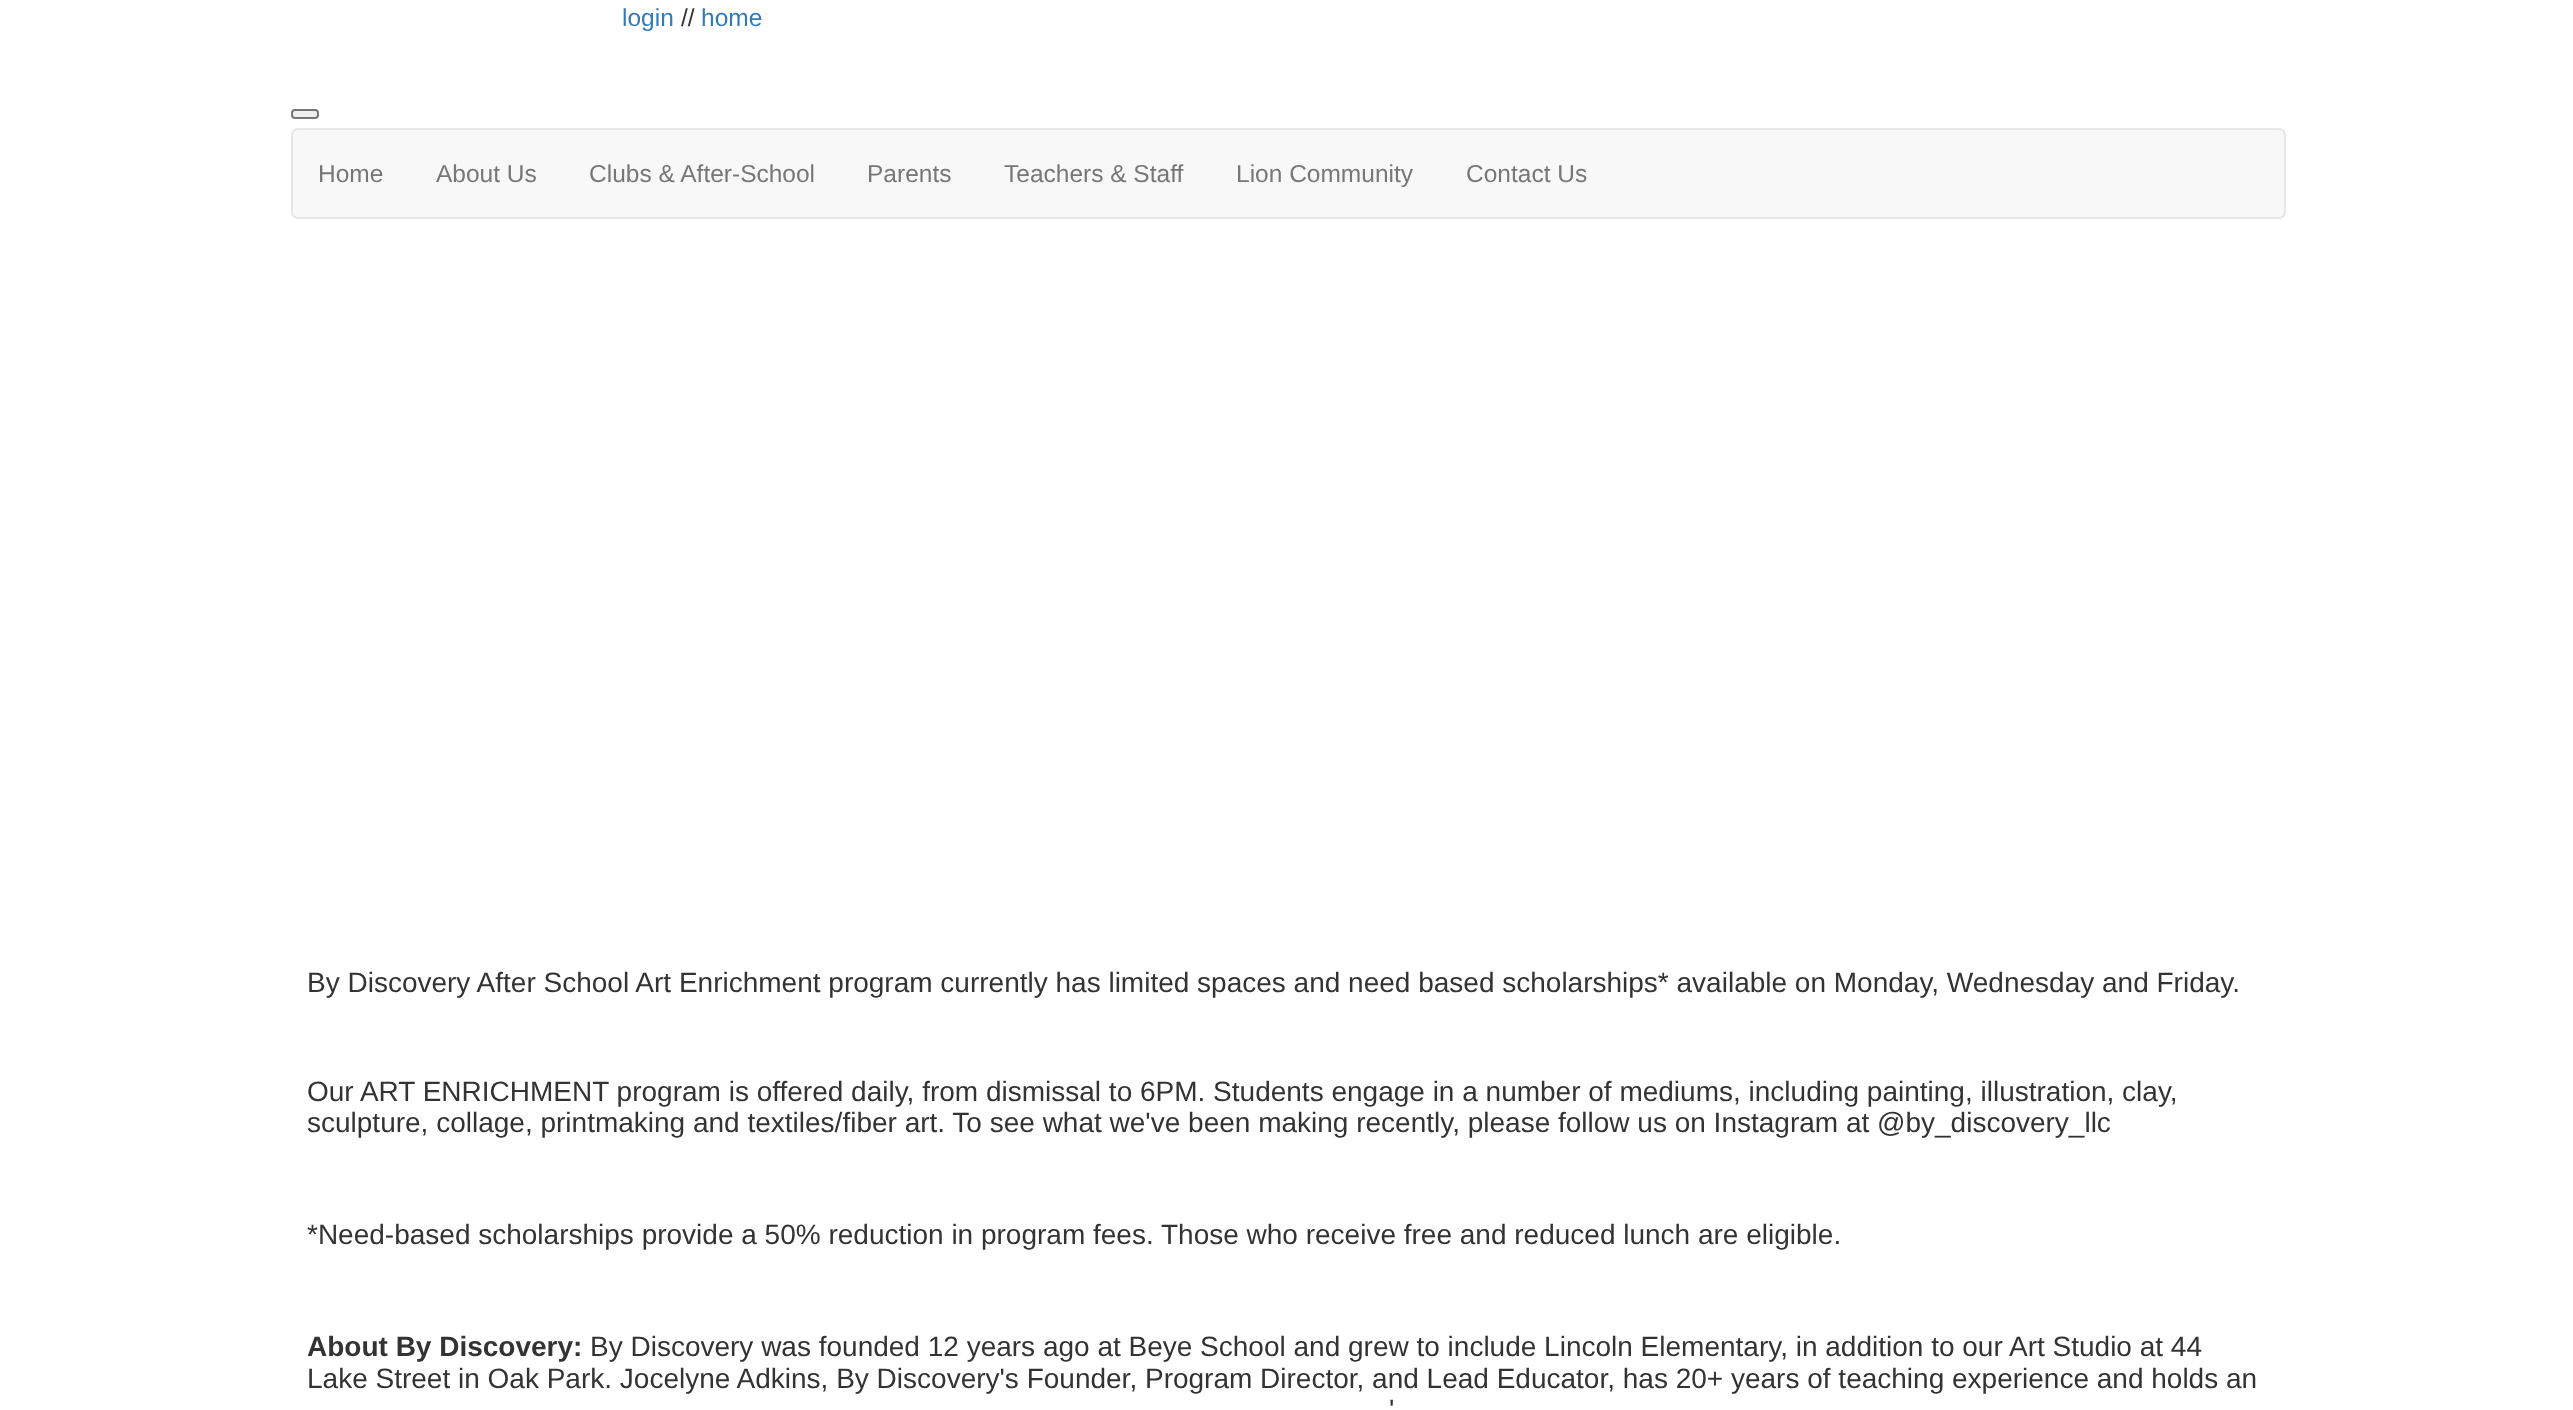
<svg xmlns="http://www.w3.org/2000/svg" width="2573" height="1410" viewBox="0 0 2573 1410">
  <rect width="100%" height="100%" fill="#fff"/>
  <rect x="292" y="110" width="26" height="8" rx="3" fill="#efefef" stroke="#767676" stroke-width="2"/>
  <rect x="292" y="129" width="1993" height="89" rx="6" fill="#f8f8f8" stroke="#e7e7e7" stroke-width="2"/>
  <text x="622" y="26" font-family="Liberation Sans" font-size="24.5" fill="#337ab7">login</text>
  <text x="681" y="26" font-family="Liberation Sans" font-size="24.5" fill="#333">//</text>
  <text x="701" y="26" font-family="Liberation Sans" font-size="24.5" fill="#337ab7">home</text>
  <g font-family="Liberation Sans" font-size="24.5" fill="#777">
    <text x="318" y="182">Home</text>
    <text x="436" y="182">About Us</text>
    <text x="589" y="182">Clubs &amp; After-School</text>
    <text x="867" y="182">Parents</text>
    <text x="1004" y="182">Teachers &amp; Staff</text>
    <text x="1236" y="182">Lion Community</text>
    <text x="1466" y="182">Contact Us</text>
  </g>
  <g font-family="Liberation Sans" font-size="28" fill="#333">
    <text x="307" y="992">By Discovery After School Art Enrichment program currently has limited spaces and need based scholarships* available on Monday, Wednesday and Friday.</text>
    <text x="307" y="1101">Our ART ENRICHMENT program is offered daily, from dismissal to 6PM. Students engage in a number of mediums, including painting, illustration, clay,</text>
    <text x="307" y="1132">sculpture, collage, printmaking and textiles/fiber art. To see what we've been making recently, please follow us on Instagram at @by_discovery_llc</text>
    <text x="307" y="1244">*Need-based scholarships provide a 50% reduction in program fees. Those who receive free and reduced lunch are eligible.</text>
  </g>
  <text x="307" y="1356" font-family="Liberation Sans" font-size="28" font-weight="bold" fill="#333">About By Discovery:</text>
  <g font-family="Liberation Sans" font-size="28" fill="#333">
    <text x="590" y="1356">By Discovery was founded 12 years ago at Beye School and grew to include Lincoln Elementary, in addition to our Art Studio at 44</text>
    <text x="307" y="1388">Lake Street in Oak Park. Jocelyne Adkins, By Discovery's Founder, Program Director, and Lead Educator, has 20+ years of teaching experience and holds an</text>
    <text x="1389" y="1419">'</text>
  </g>
</svg>
